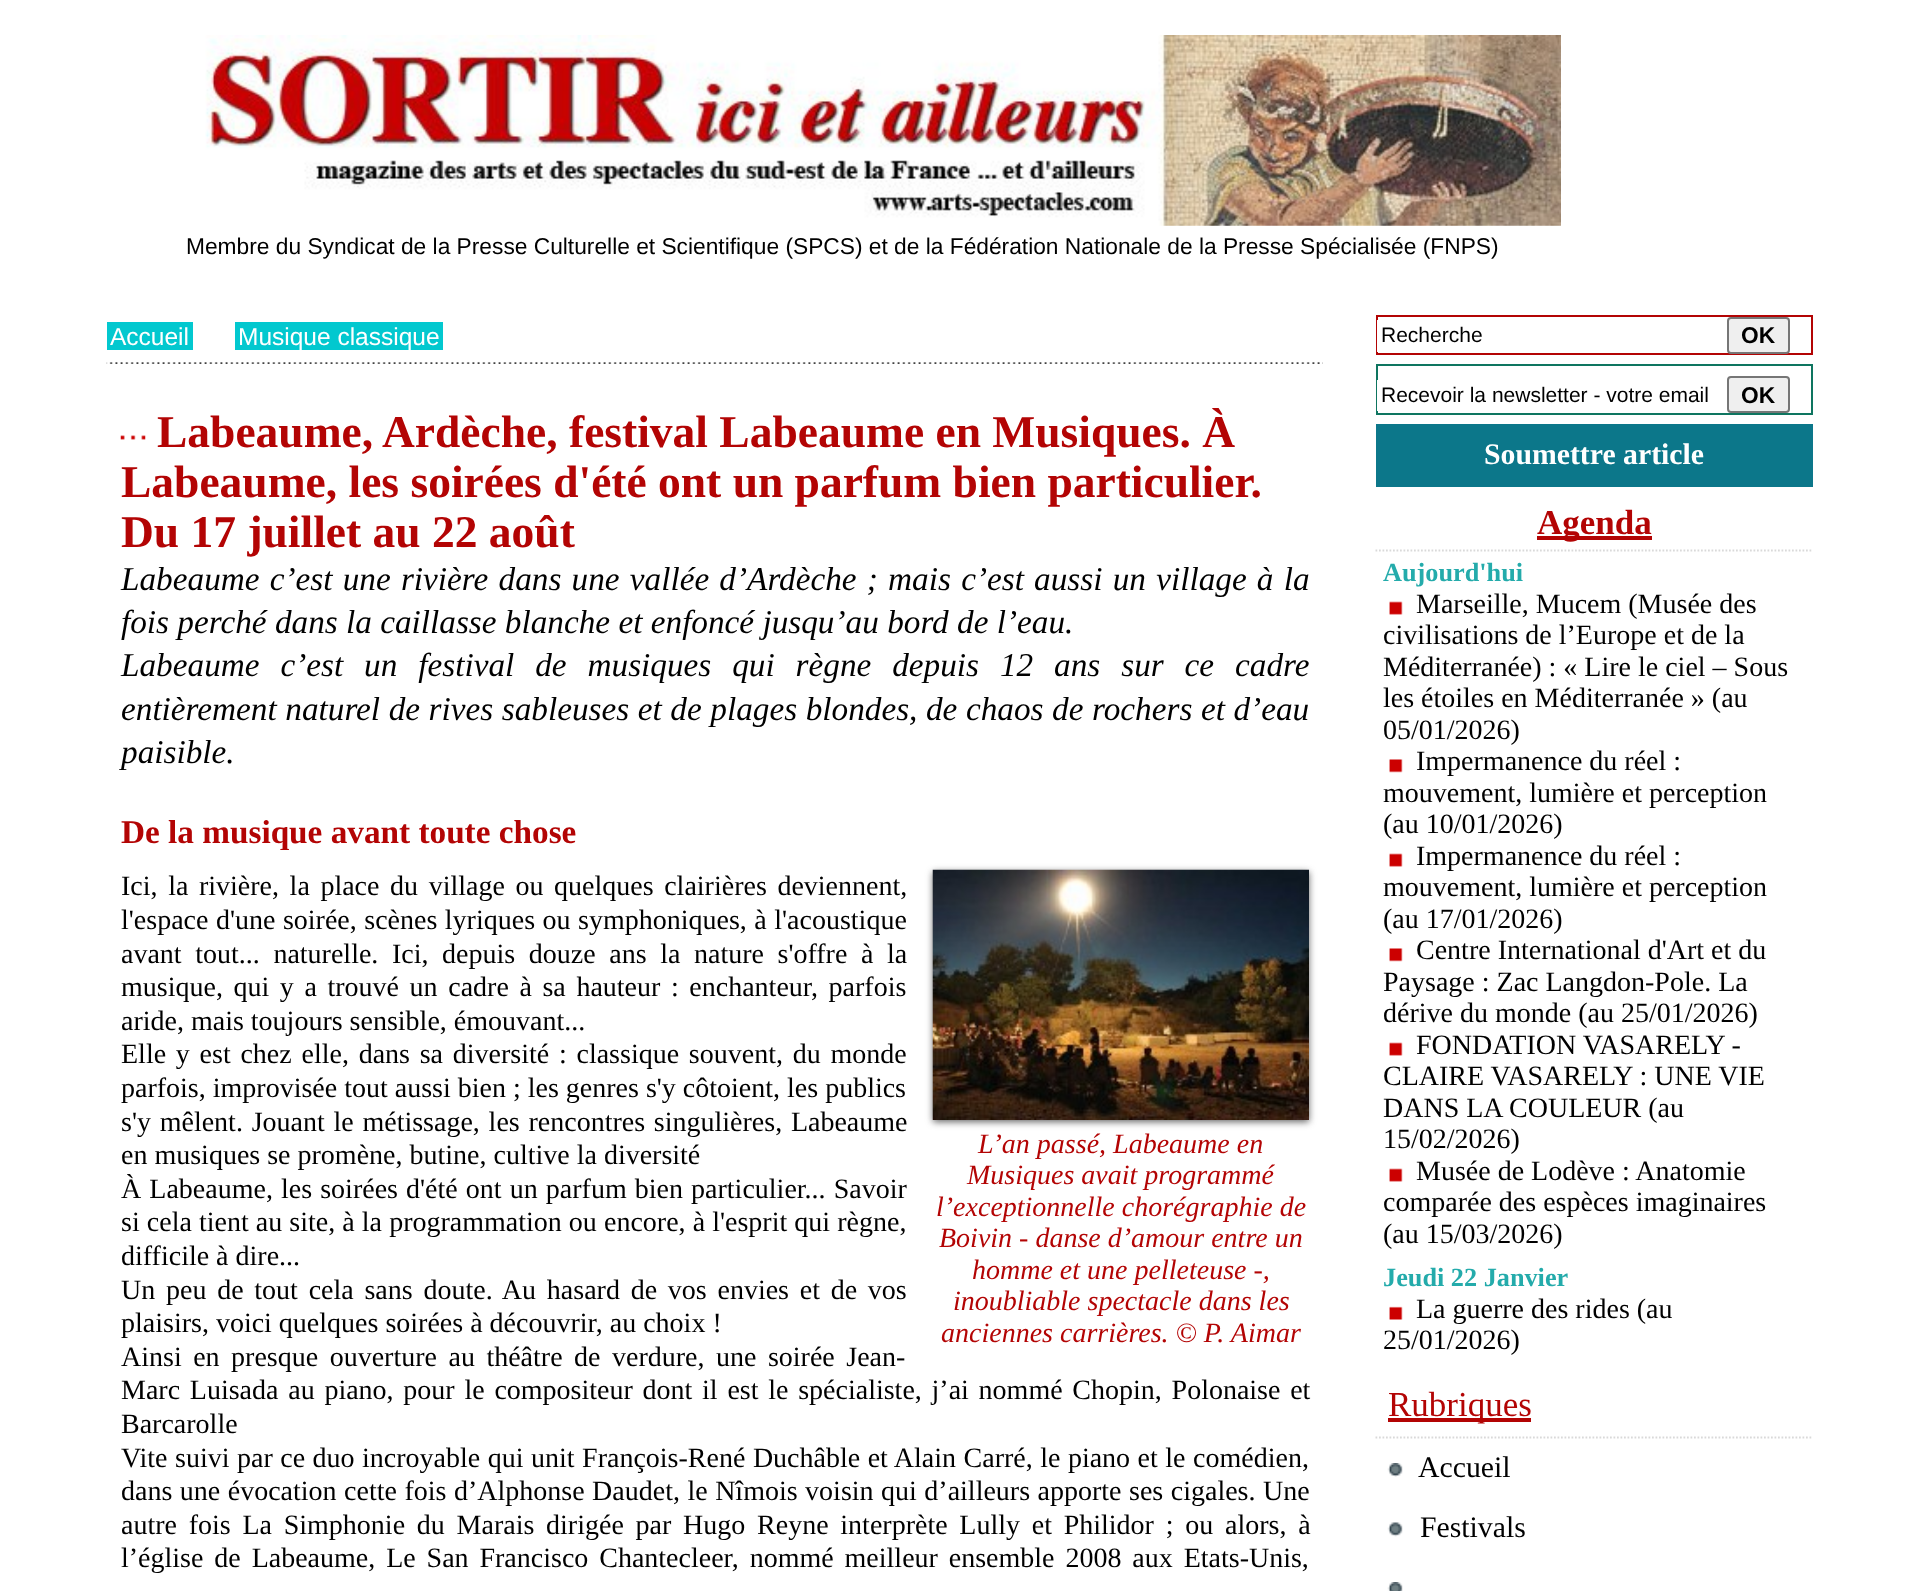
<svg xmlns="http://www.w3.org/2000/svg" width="1927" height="1591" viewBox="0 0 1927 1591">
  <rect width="100%" height="100%" fill="#fff"/>
  <image x="205" y="35" width="1356" height="191" href="img/1.png"/>
  <path d="M107 322h86v28H107z" fill="#02c8cf"/>
  <path d="M235 322h208v28H235z" fill="#02c8cf"/>
  <image x="106" y="362" width="1217" height="2" href="img/2.png"/>
  <image x="120" y="435" width="26" height="5" href="img/3.png"/>
  <path d="M933 872h376v250H933z" fill="#666" filter="blur(3.5px)"/>
  <image x="932" y="869" width="377" height="251" href="img/4.png"/>
  <path d="M1377 316h435v38H1377z" fill="none" stroke="#b30404" stroke-width="2"/>
  <path d="M1377 320h1v32H1377z" fill="#fff"/>
  <rect x="1728" y="318" width="61" height="35" rx="3" fill="#efefef" stroke="#767676" stroke-width="2"/>
  <path d="M1377 365h435v49H1377z" fill="none" stroke="#0e7560" stroke-width="2"/>
  <path d="M1377 380h1v31H1377z" fill="#fff"/>
  <rect x="1728" y="377" width="61" height="35" rx="3" fill="#efefef" stroke="#767676" stroke-width="2"/>
  <path d="M1377 425h435v61H1377z" fill="none" stroke="#0c778a" stroke-width="2"/>
  <path d="M1378 426h433v59H1378z" fill="#0c778a"/>
  <path d="M1375.5 550.5H1813" fill="none" stroke="#d9d9d9" stroke-width="1.8" stroke-dasharray="1.75 1.75"/>
  <path d="M1537 536h115v4H1537z" fill="#b30404"/>
  <image x="1389" y="601" width="14" height="14" href="img/5.png"/>
  <image x="1389" y="759" width="14" height="14" href="img/6.png"/>
  <image x="1389" y="853" width="14" height="14" href="img/5.png"/>
  <image x="1389" y="948" width="14" height="14" href="img/6.png"/>
  <image x="1389" y="1042" width="14" height="14" href="img/5.png"/>
  <image x="1389" y="1168" width="14" height="14" href="img/5.png"/>
  <image x="1389" y="1306" width="14" height="14" href="img/7.png"/>
  <path d="M1375.5 1437.5H1813" fill="none" stroke="#d9d9d9" stroke-width="1.8" stroke-dasharray="1.75 1.75"/>
  <path d="M1388 1418h143v4H1388z" fill="#b30404"/>
  <image x="1387" y="1463" width="16" height="14" href="img/8.png"/>
  <image x="1387" y="1522" width="16" height="15" href="img/9.png"/>
  <image x="1387" y="1582" width="16" height="9" href="img/10.png"/>
  <text x="186" y="254" font-family="Liberation Sans" font-size="22.75" fill="#000">Membre du Syndicat de la Presse Culturelle et Scientifique (SPCS) et de la Fédération Nationale de la Presse Spécialisée (FNPS)</text>
  <g font-family="Liberation Sans" font-size="24.5" fill="#fff">
    <text x="110" y="345">Accueil</text>
    <text x="238" y="345">Musique classique</text>
  </g>
  <g font-family="Liberation Serif" font-size="45.5" font-weight="bold" fill="#b30404">
    <text x="157" y="447">Labeaume, Ardèche, festival Labeaume en Musiques. À</text>
    <text x="121" y="497">Labeaume, les soirées d'été ont un parfum bien particulier.</text>
    <text x="121" y="547">Du 17 juillet au 22 août</text>
  </g>
  <g font-family="Liberation Serif" font-size="33.25" font-style="italic" fill="#000">
    <text x="121" y="590" word-spacing="1.9">Labeaume c’est une rivière dans une vallée d’Ardèche ; mais c’est aussi un village à la</text>
    <text x="121" y="633">fois perché dans la caillasse blanche et enfoncé jusqu’au bord de l’eau.</text>
    <text x="121" y="676" word-spacing="12.6">Labeaume c’est un festival de musiques qui règne depuis 12 ans sur ce cadre</text>
    <text x="121" y="720" word-spacing="0.25">entièrement naturel de rives sableuses et de plages blondes, de chaos de rochers et d’eau</text>
    <text x="121" y="763">paisible.</text>
  </g>
  <text x="121" y="843" font-family="Liberation Serif" font-size="33.25" font-weight="bold" fill="#b30404">De la musique avant toute chose</text>
  <g font-family="Liberation Serif" font-size="28" fill="#000">
    <text x="121" y="895" word-spacing="3.6">Ici, la rivière, la place du village ou quelques clairières deviennent,</text>
    <text x="121" y="929" word-spacing="0.5">l'espace d'une soirée, scènes lyriques ou symphoniques, à l'acoustique</text>
    <text x="121" y="963" word-spacing="6.6">avant tout... naturelle. Ici, depuis douze ans la nature s'offre à la</text>
    <text x="121" y="996" word-spacing="3.6">musique, qui y a trouvé un cadre à sa hauteur : enchanteur, parfois</text>
    <text x="121" y="1030">aride, mais toujours sensible, émouvant...</text>
    <text x="121" y="1063" word-spacing="2.75">Elle y est chez elle, dans sa diversité : classique souvent, du monde</text>
    <text x="121" y="1097">parfois, improvisée tout aussi bien ; les genres s'y côtoient, les publics</text>
    <text x="121" y="1131" word-spacing="1.75">s'y mêlent. Jouant le métissage, les rencontres singulières, Labeaume</text>
    <text x="121" y="1164">en musiques se promène, butine, cultive la diversité</text>
    <text x="121" y="1198" word-spacing="1.1">À Labeaume, les soirées d'été ont un parfum bien particulier... Savoir</text>
    <text x="121" y="1231" word-spacing="0.1">si cela tient au site, à la programmation ou encore, à l'esprit qui règne,</text>
    <text x="121" y="1265">difficile à dire...</text>
    <text x="121" y="1299" word-spacing="3.75">Un peu de tout cela sans doute. Au hasard de vos envies et de vos</text>
    <text x="121" y="1332">plaisirs, voici quelques soirées à découvrir, au choix !</text>
    <text x="121" y="1366" word-spacing="4.5">Ainsi en presque ouverture au théâtre de verdure, une soirée Jean-</text>
    <text x="121" y="1399" word-spacing="2.75">Marc Luisada au piano, pour le compositeur dont il est le spécialiste, j’ai nommé Chopin, Polonaise et</text>
    <text x="121" y="1433">Barcarolle</text>
    <text x="121" y="1467" word-spacing="0.5">Vite suivi par ce duo incroyable qui unit François-René Duchâble et Alain Carré, le piano et le comédien,</text>
    <text x="121" y="1500" word-spacing="0.5">dans une évocation cette fois d’Alphonse Daudet, le Nîmois voisin qui d’ailleurs apporte ses cigales. Une</text>
    <text x="121" y="1534" word-spacing="4.75">autre fois La Simphonie du Marais dirigée par Hugo Reyne interprète Lully et Philidor ; ou alors, à</text>
    <text x="121" y="1567" word-spacing="3.9">l’église de Labeaume, Le San Francisco Chantecleer, nommé meilleur ensemble 2008 aux Etats-Unis,</text>
  </g>
  <g font-family="Liberation Serif" font-size="28" font-style="italic" fill="#b30404">
    <text x="978" y="1153">L’an passé, Labeaume en</text>
    <text x="967" y="1184">Musiques avait programmé</text>
    <text x="936" y="1216">l’exceptionnelle chorégraphie de</text>
    <text x="939" y="1247">Boivin - danse d’amour entre un</text>
    <text x="972" y="1279">homme et une pelleteuse -,</text>
    <text x="953" y="1310">inoubliable spectacle dans les</text>
    <text x="941" y="1342">anciennes carrières. © P. Aimar</text>
  </g>
  <text x="1381" y="342" font-family="Liberation Sans" font-size="21" fill="#000">Recherche</text>
  <text x="1741" y="343" font-family="Liberation Sans" font-size="22.75" font-weight="bold" fill="#000">OK</text>
  <text x="1381" y="402" font-family="Liberation Sans" font-size="21" fill="#000">Recevoir la newsletter - votre email</text>
  <text x="1741" y="403" font-family="Liberation Sans" font-size="22.75" font-weight="bold" fill="#000">OK</text>
  <text x="1484" y="464" font-family="Liberation Serif" font-size="29.75" font-weight="bold" fill="#fff">Soumettre article</text>
  <text x="1537" y="534" font-family="Liberation Serif" font-size="35" font-weight="bold" fill="#b30404">Agenda</text>
  <text x="1383" y="581" font-family="Liberation Serif" font-size="26.25" font-weight="bold" fill="#24abab">Aujourd'hui</text>
  <g font-family="Liberation Serif" font-size="28" fill="#000">
    <text x="1416" y="613">Marseille, Mucem (Musée des</text>
    <text x="1383" y="644">civilisations de l’Europe et de la</text>
    <text x="1383" y="676">Méditerranée) : « Lire le ciel – Sous</text>
    <text x="1383" y="707">les étoiles en Méditerranée » (au</text>
    <text x="1383" y="739">05/01/2026)</text>
    <text x="1416" y="770">Impermanence du réel :</text>
    <text x="1383" y="802">mouvement, lumière et perception</text>
    <text x="1383" y="833">(au 10/01/2026)</text>
    <text x="1416" y="865">Impermanence du réel :</text>
    <text x="1383" y="896">mouvement, lumière et perception</text>
    <text x="1383" y="928">(au 17/01/2026)</text>
    <text x="1416" y="959">Centre International d'Art et du</text>
    <text x="1383" y="991">Paysage : Zac Langdon-Pole. La</text>
    <text x="1383" y="1022">dérive du monde (au 25/01/2026)</text>
    <text x="1416" y="1054">FONDATION VASARELY -</text>
    <text x="1383" y="1085">CLAIRE VASARELY : UNE VIE</text>
    <text x="1383" y="1117">DANS LA COULEUR (au</text>
    <text x="1383" y="1148">15/02/2026)</text>
    <text x="1416" y="1180">Musée de Lodève : Anatomie</text>
    <text x="1383" y="1211">comparée des espèces imaginaires</text>
    <text x="1383" y="1243">(au 15/03/2026)</text>
  </g>
  <text x="1383" y="1286" font-family="Liberation Serif" font-size="26.25" font-weight="bold" fill="#24abab">Jeudi 22 Janvier</text>
  <g font-family="Liberation Serif" font-size="28" fill="#000">
    <text x="1416" y="1318">La guerre des rides (au</text>
    <text x="1383" y="1349">25/01/2026)</text>
  </g>
  <text x="1388" y="1416" font-family="Liberation Serif" font-size="35" fill="#b30404">Rubriques</text>
  <g font-family="Liberation Serif" font-size="29.75" fill="#000">
    <text x="1418" y="1477">Accueil</text>
    <text x="1420" y="1537">Festivals</text>
  </g>
</svg>
